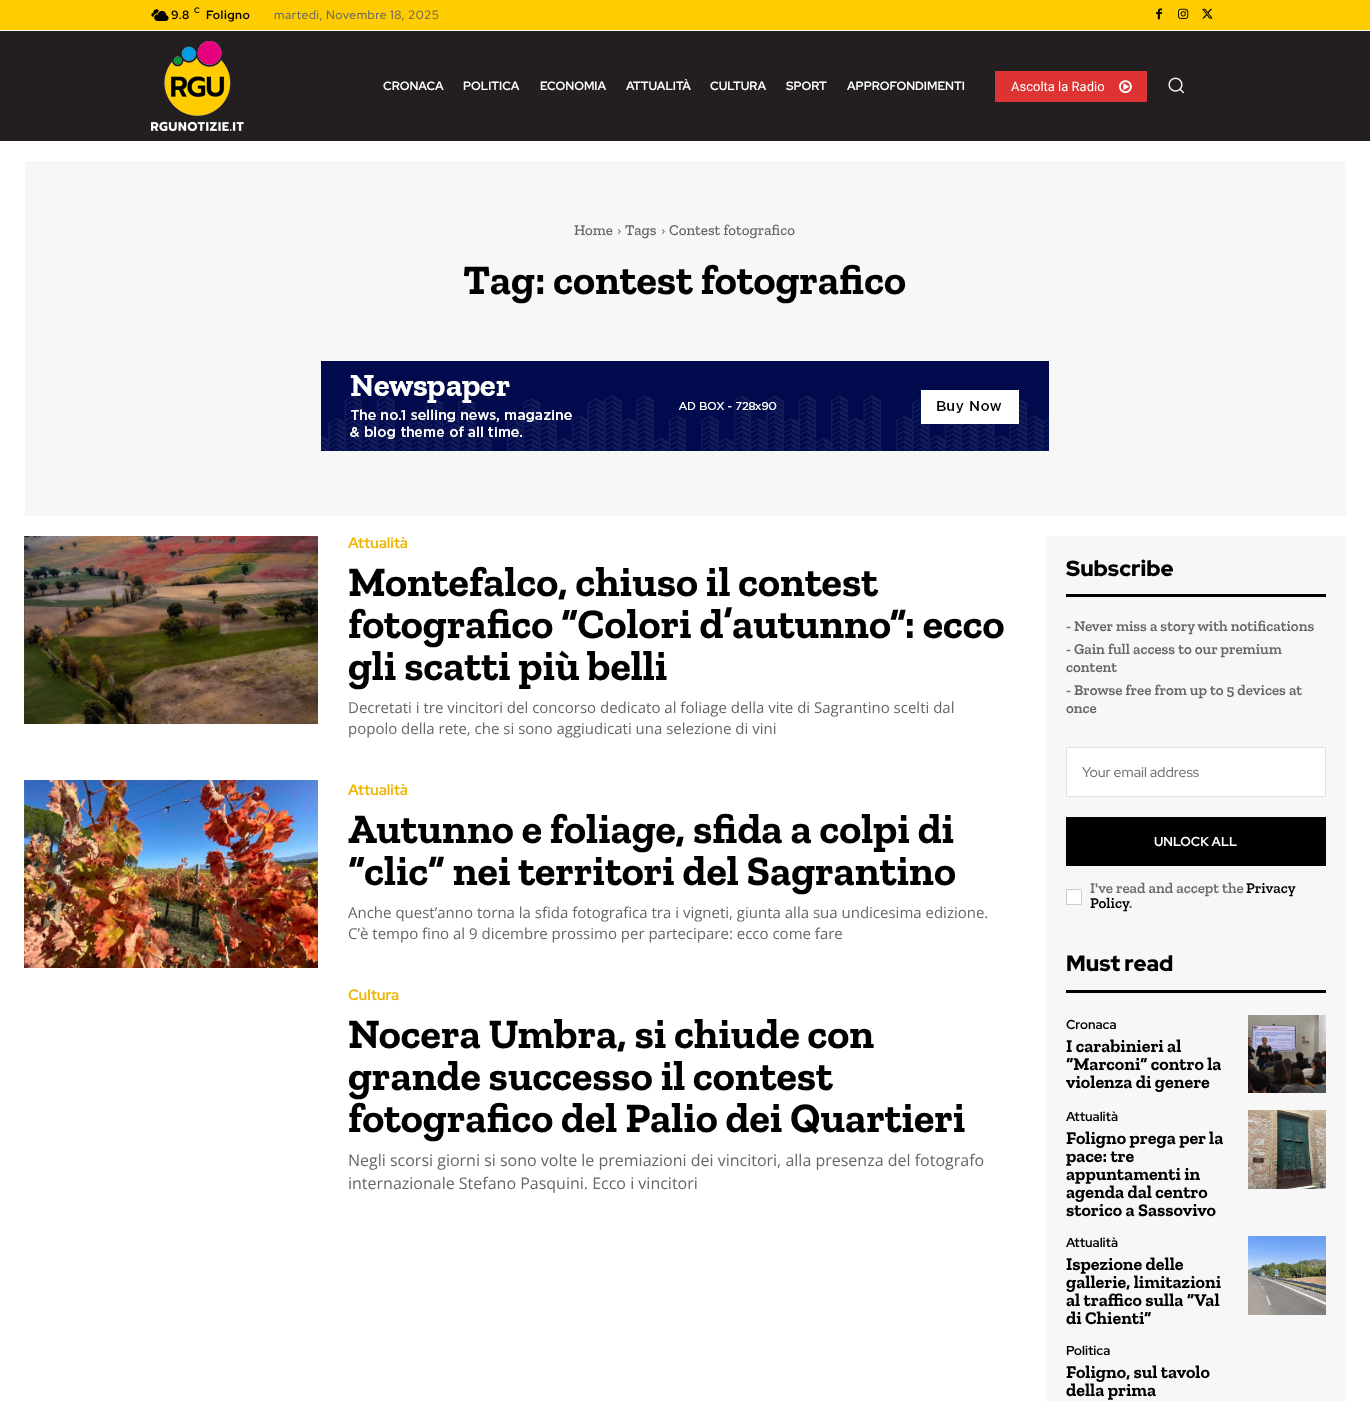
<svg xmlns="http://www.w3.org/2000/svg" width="1370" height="1401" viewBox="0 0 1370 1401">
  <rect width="100%" height="100%" fill="#fff"/>
  <path d="M0 0h1370v30H0z" fill="#fc0"/>
  <image x="151" y="9" width="18" height="12" href="img/1.png"/>
  <image x="1156" y="8" width="6" height="12" href="img/2.png"/>
  <image x="1178" y="8" width="11" height="11" href="img/3.png"/>
  <image x="1202" y="8" width="11" height="11" href="img/4.png"/>
  <path d="M0 31h1370v110H0z" fill="#231f20"/>
  <image x="151" y="41" width="93" height="90" href="img/5.png"/>
  <path d="M995 71h152v31H995z" fill="#d33"/>
  <image x="1119" y="80" width="13" height="14" href="img/6.png"/>
  <image x="1168" y="77" width="17" height="17" href="img/7.png"/>
  <path d="M25 161h1321v355H25z" fill="#f7f7f7"/>
  <image x="618" y="229" width="3" height="5" href="img/8.png"/>
  <image x="662" y="229" width="3" height="5" href="img/8.png"/>
  <image x="321" y="361" width="728" height="90" href="img/9.png"/>
  <image x="24" y="536" width="294" height="188" href="img/10.png"/>
  <image x="24" y="780" width="294" height="188" href="img/11.png"/>
  <path d="M1046 536h300v865H1046z" fill="#f7f7f7"/>
  <path d="M1066 594h260v3H1066z" fill="#000"/>
  <path d="M1066.5 747.5h259v49H1066.5z" fill="#fff" stroke="#e1e1e1"/>
  <path d="M1066 817h260v49H1066z" fill="#000"/>
  <path d="M1066.5 889.5h15v15H1066.5z" fill="#fff" stroke="#ccc"/>
  <path d="M1066 990h260v3H1066z" fill="#000"/>
  <image x="1248" y="1015" width="78" height="78" href="img/12.png"/>
  <image x="1248" y="1110" width="78" height="79" href="img/13.png"/>
  <image x="1248" y="1236" width="78" height="79" href="img/14.png"/>
  <text x="171" y="19" font-family="Red Hat Display" font-size="12" font-weight="bold" letter-spacing="0.5" fill="#000">9.8</text>
  <text x="194" y="13" font-family="Red Hat Display" font-size="8" font-weight="bold" letter-spacing="0.5" fill="#000">C</text>
  <text x="206" y="19" font-family="Red Hat Display" font-size="12" font-weight="bold" letter-spacing="0.5" fill="#000">Foligno</text>
  <text x="274" y="19" font-family="Red Hat Display" font-size="12" font-weight="500" letter-spacing="0.5" fill="#666">martedì, Novembre 18, 2025</text>
  <g font-family="Red Hat Display" font-size="12" font-weight="bold" fill="#fff">
    <text x="383" y="90">CRONACA</text>
    <text x="463" y="90">POLITICA</text>
    <text x="540" y="90">ECONOMIA</text>
    <text x="626" y="90">ATTUALITÀ</text>
    <text x="710" y="90">CULTURA</text>
    <text x="786" y="90">SPORT</text>
    <text x="847" y="90">APPROFONDIMENTI</text>
  </g>
  <text x="1011" y="91" font-family="Roboto" font-size="13" fill="#fff">Ascolta la Radio</text>
  <g font-family="Zilla Slab" font-size="15" font-weight="500" fill="#666">
    <text x="574" y="235">Home</text>
    <text x="625" y="235">Tags</text>
    <text x="669" y="235">Contest fotografico</text>
  </g>
  <text x="463" y="294" font-family="Zilla Slab" font-size="42" font-weight="bold" fill="#000">Tag: contest fotografico</text>
  <text x="348" y="548" font-family="Red Hat Display" font-size="15" font-weight="bold" fill="#edb500">Attualità</text>
  <g font-family="Zilla Slab" font-size="42" font-weight="bold" fill="#000">
    <text x="348" y="596">Montefalco, chiuso il contest</text>
    <text x="348" y="638">fotografico “Colori d’autunno”: ecco</text>
    <text x="348" y="680">gli scatti più belli</text>
  </g>
  <g font-family="Open Sans" font-size="15" fill="#666">
    <text x="348" y="713">Decretati i tre vincitori del concorso dedicato al foliage della vite di Sagrantino scelti dal</text>
    <text x="348" y="734">popolo della rete, che si sono aggiudicati una selezione di vini</text>
  </g>
  <text x="348" y="795" font-family="Red Hat Display" font-size="15" font-weight="bold" fill="#edb500">Attualità</text>
  <g font-family="Zilla Slab" font-size="42" font-weight="bold" fill="#000">
    <text x="348" y="843">Autunno e foliage, sfida a colpi di</text>
    <text x="348" y="885">“clic” nei territori del Sagrantino</text>
  </g>
  <g font-family="Open Sans" font-size="15" fill="#666">
    <text x="348" y="918">Anche quest’anno torna la sfida fotografica tra i vigneti, giunta alla sua undicesima edizione.</text>
    <text x="348" y="939">C’è tempo fino al 9 dicembre prossimo per partecipare: ecco come fare</text>
  </g>
  <text x="348" y="1000" font-family="Red Hat Display" font-size="15" font-weight="bold" fill="#edb500">Cultura</text>
  <g font-family="Zilla Slab" font-size="42" font-weight="bold" fill="#000">
    <text x="348" y="1048">Nocera Umbra, si chiude con</text>
    <text x="348" y="1090">grande successo il contest</text>
    <text x="348" y="1132">fotografico del Palio dei Quartieri</text>
  </g>
  <g font-family="Open Sans" font-size="16" fill="#666">
    <text x="348" y="1166">Negli scorsi giorni si sono volte le premiazioni dei vincitori, alla presenza del fotografo</text>
    <text x="348" y="1189">internazionale Stefano Pasquini. Ecco i vincitori</text>
  </g>
  <text x="1066" y="576" font-family="Red Hat Display" font-size="22" font-weight="900" fill="#000">Subscribe</text>
  <g font-family="Zilla Slab" font-size="15" font-weight="600" fill="#666">
    <text x="1066" y="631">- Never miss a story with notifications</text>
    <text x="1066" y="654">- Gain full access to our premium</text>
    <text x="1066" y="672">content</text>
    <text x="1066" y="695">- Browse free from up to 5 devices at</text>
    <text x="1066" y="713">once</text>
  </g>
  <text x="1082" y="777" font-family="Red Hat Display" font-size="14" font-weight="500" fill="#757575">Your email address</text>
  <text x="1154" y="846" font-family="Red Hat Display" font-size="13" font-weight="bold" fill="#fff">UNLOCK ALL</text>
  <text x="1090" y="893" font-family="Zilla Slab" font-size="15" font-weight="600" fill="#6d6d6d">I've read and accept the</text>
  <g font-family="Zilla Slab" font-size="15" font-weight="600" fill="#000">
    <text x="1246" y="893">Privacy</text>
    <text x="1090" y="908">Policy</text>
  </g>
  <text x="1129" y="908" font-family="Zilla Slab" font-size="15" font-weight="600" fill="#6d6d6d">.</text>
  <text x="1066" y="971" font-family="Red Hat Display" font-size="22" font-weight="900" fill="#000">Must read</text>
  <text x="1066" y="1029" font-family="Red Hat Display" font-size="13" font-weight="bold" fill="#000">Cronaca</text>
  <g font-family="Zilla Slab" font-size="18" font-weight="bold" fill="#000">
    <text x="1066" y="1052">I carabinieri al</text>
    <text x="1066" y="1070">“Marconi” contro la</text>
    <text x="1066" y="1088">violenza di genere</text>
  </g>
  <text x="1066" y="1121" font-family="Red Hat Display" font-size="13" font-weight="bold" fill="#000">Attualità</text>
  <g font-family="Zilla Slab" font-size="18" font-weight="bold" fill="#000">
    <text x="1066" y="1144">Foligno prega per la</text>
    <text x="1066" y="1162">pace: tre</text>
    <text x="1066" y="1180">appuntamenti in</text>
    <text x="1066" y="1198">agenda dal centro</text>
    <text x="1066" y="1216">storico a Sassovivo</text>
  </g>
  <text x="1066" y="1247" font-family="Red Hat Display" font-size="13" font-weight="bold" fill="#000">Attualità</text>
  <g font-family="Zilla Slab" font-size="18" font-weight="bold" fill="#000">
    <text x="1066" y="1270">Ispezione delle</text>
    <text x="1066" y="1288">gallerie, limitazioni</text>
    <text x="1066" y="1306">al traffico sulla “Val</text>
    <text x="1066" y="1324">di Chienti”</text>
  </g>
  <text x="1066" y="1355" font-family="Red Hat Display" font-size="13" font-weight="bold" fill="#000">Politica</text>
  <g font-family="Zilla Slab" font-size="18" font-weight="bold" fill="#000">
    <text x="1066" y="1378">Foligno, sul tavolo</text>
    <text x="1066" y="1396">della prima</text>
  </g>
</svg>
